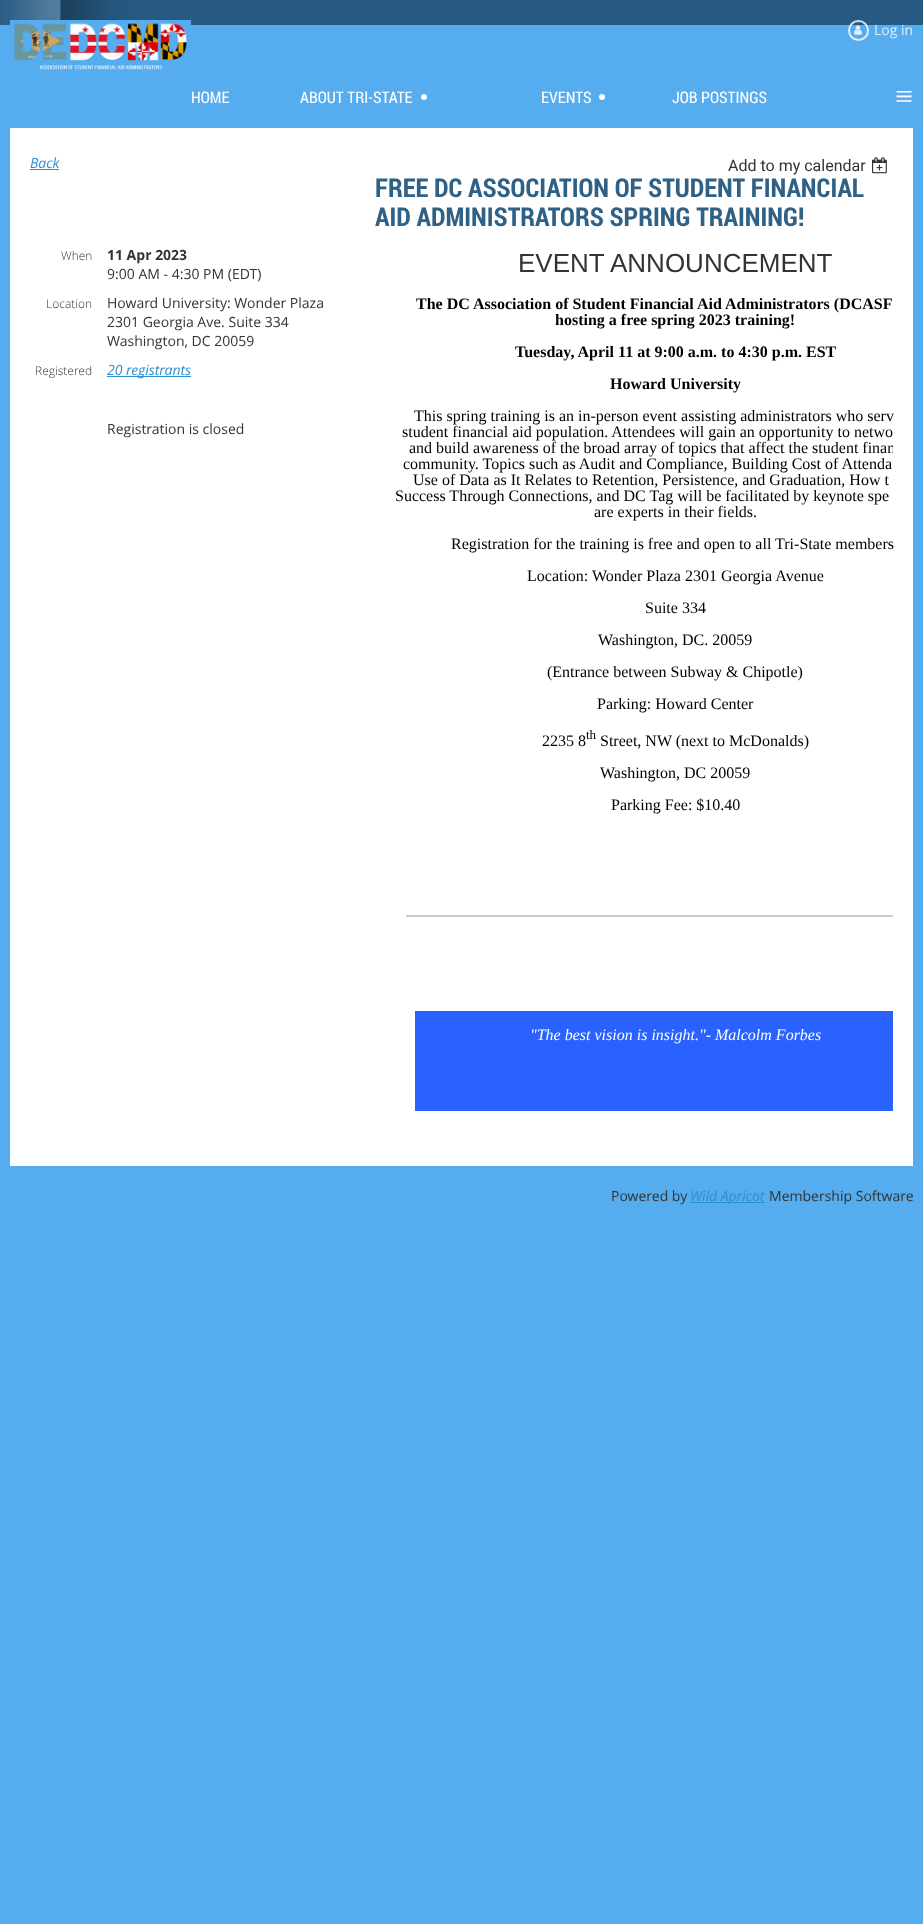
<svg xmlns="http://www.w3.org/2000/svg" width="923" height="1924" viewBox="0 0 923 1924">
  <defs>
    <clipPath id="clip1"><path d="M30 148h863v998H30z"/></clipPath>
  </defs>
  <rect width="100%" height="100%" fill="#55acee"/>
  <image x="0" y="0" width="923" height="25" href="img/1.png"/>
  <image x="10" y="20" width="181" height="50" href="img/2.png"/>
  <circle cx="858.5" cy="30.5" r="9.5" fill="none" stroke="#ffffffcc" stroke-width="2"/>
  <image x="854" y="25" width="8" height="10" href="img/3.png"/>
  <circle cx="424" cy="97" r="3" fill="#fff"/>
  <circle cx="602" cy="97" r="3" fill="#fff"/>
  <path d="M10 128h903v1038H10z" fill="#fff"/>
  <path d="M30 169h29v1H30z" fill="#2b90d1"/>
  <image x="872" y="157" width="15" height="17" href="img/4.png"/>
  <path d="M107 376h84v1H107z" fill="#2b90d1"/>
  <path d="M406 915h487v2H406z" fill="#cacaca"/>
  <path d="M415 1011h478v100H415z" fill="#2962ff"/>
  <path d="M690 1202h75v1H690z" fill="#2b90d1"/>
  <text x="874" y="35" font-family="Open Sans" font-size="14" fill="#ddeefb">Log in</text>
  <g font-family="Roboto Condensed" font-size="16" fill="#fefefe">
    <text x="191" y="103">HOME</text>
    <text x="300" y="103">ABOUT TRI-STATE</text>
    <text x="541" y="103">EVENTS</text>
    <text x="672" y="103">JOB POSTINGS</text>
  </g>
  <text x="895" y="107" font-family="Liberation Serif" font-size="32" fill="#fefefe">≡</text>
  <text x="30" y="168" font-family="Open Sans" font-size="14" font-style="italic" fill="#2b90d1">Back</text>
  <text x="728" y="171" font-family="Roboto" font-size="16" fill="#333">Add to my calendar</text>
  <g font-family="Roboto Condensed" font-size="26" font-weight="bold" fill="#2e6185">
    <text x="375" y="197">FREE DC ASSOCIATION OF STUDENT FINANCIAL</text>
    <text x="375" y="226">AID ADMINISTRATORS SPRING TRAINING!</text>
  </g>
  <text x="61" y="260" font-family="Open Sans" font-size="12" font-weight="300" fill="#333">When</text>
  <text x="107" y="260" font-family="Open Sans" font-size="14" font-weight="bold" fill="#333">11 Apr 2023</text>
  <text x="107" y="279" font-family="Open Sans" font-size="14" fill="#333">9:00 AM - 4:30 PM (EDT)</text>
  <text x="46" y="308" font-family="Open Sans" font-size="12" font-weight="300" fill="#333">Location</text>
  <g font-family="Open Sans" font-size="14" fill="#333">
    <text x="107" y="308">Howard University: Wonder Plaza</text>
    <text x="107" y="327">2301 Georgia Ave. Suite 334</text>
    <text x="107" y="346">Washington, DC 20059</text>
  </g>
  <text x="35" y="375" font-family="Open Sans" font-size="12" font-weight="300" fill="#333">Registered</text>
  <text x="107" y="375" font-family="Open Sans" font-size="14" font-style="italic" fill="#2b90d1">20 registrants</text>
  <text x="107" y="434" font-family="Open Sans" font-size="14" fill="#333">Registration is closed</text>
  <text x="518" y="272" font-family="Liberation Sans" font-size="26" fill="#333">EVENT ANNOUNCEMENT</text>
  <g font-family="Liberation Serif" font-size="16" font-weight="bold" fill="#000">
    <text x="416" y="309">The DC Association of Student Financial Aid Administrators (DCASF</text>
    <text x="555" y="325">hosting a free spring 2023 training!</text>
    <text x="515" y="357">Tuesday, April 11 at 9:00 a.m. to 4:30 p.m. EST</text>
    <text x="610" y="389">Howard University</text>
  </g>
  <g font-family="Liberation Serif" font-size="16" fill="#000">
    <text x="414" y="421">This spring training is an in-person event assisting administrators who serv</text>
    <text x="402" y="437">student financial aid population. Attendees will gain an opportunity to netwo</text>
  </g>
  <g clip-path="url(#clip1)">
    <text x="409" y="453" font-family="Liberation Serif" font-size="16" fill="#000">and build awareness of the broad array of topics that affect the student finan</text>
  </g>
  <g font-family="Liberation Serif" font-size="16" fill="#000">
    <text x="403" y="469">community. Topics such as Audit and Compliance, Building Cost of Attenda</text>
    <text x="413" y="485">Use of Data as It Relates to Retention, Persistence, and Graduation, How t</text>
    <text x="395" y="501">Success Through Connections, and DC Tag will be facilitated by keynote spe</text>
    <text x="594" y="517">are experts in their fields.</text>
    <text x="451" y="549">Registration for the training is free and open to all Tri-State members</text>
    <text x="527" y="581">Location: Wonder Plaza 2301 Georgia Avenue</text>
    <text x="645" y="613">Suite 334</text>
    <text x="598" y="645">Washington, DC. 20059</text>
    <text x="547" y="677">(Entrance between Subway &amp; Chipotle)</text>
    <text x="597" y="709">Parking: Howard Center</text>
    <text x="542" y="746">2235 8</text>
  </g>
  <text x="586" y="739" font-family="Liberation Serif" font-size="13" fill="#000">th</text>
  <g font-family="Liberation Serif" font-size="16" fill="#000">
    <text x="600" y="746">Street, NW (next to McDonalds)</text>
    <text x="600" y="778">Washington, DC 20059</text>
    <text x="611" y="810">Parking Fee: $10.40</text>
  </g>
  <text x="530" y="1040" font-family="Liberation Serif" font-size="16" font-style="italic" fill="#fefefe">"The best vision is insight."- Malcolm Forbes</text>
  <text x="611" y="1201" font-family="Open Sans" font-size="14" fill="#333">Powered by</text>
  <text x="690" y="1201" font-family="Open Sans" font-size="14" font-style="italic" fill="#2b90d1">Wild Apricot</text>
  <text x="769" y="1201" font-family="Open Sans" font-size="14" fill="#333">Membership Software</text>
</svg>
